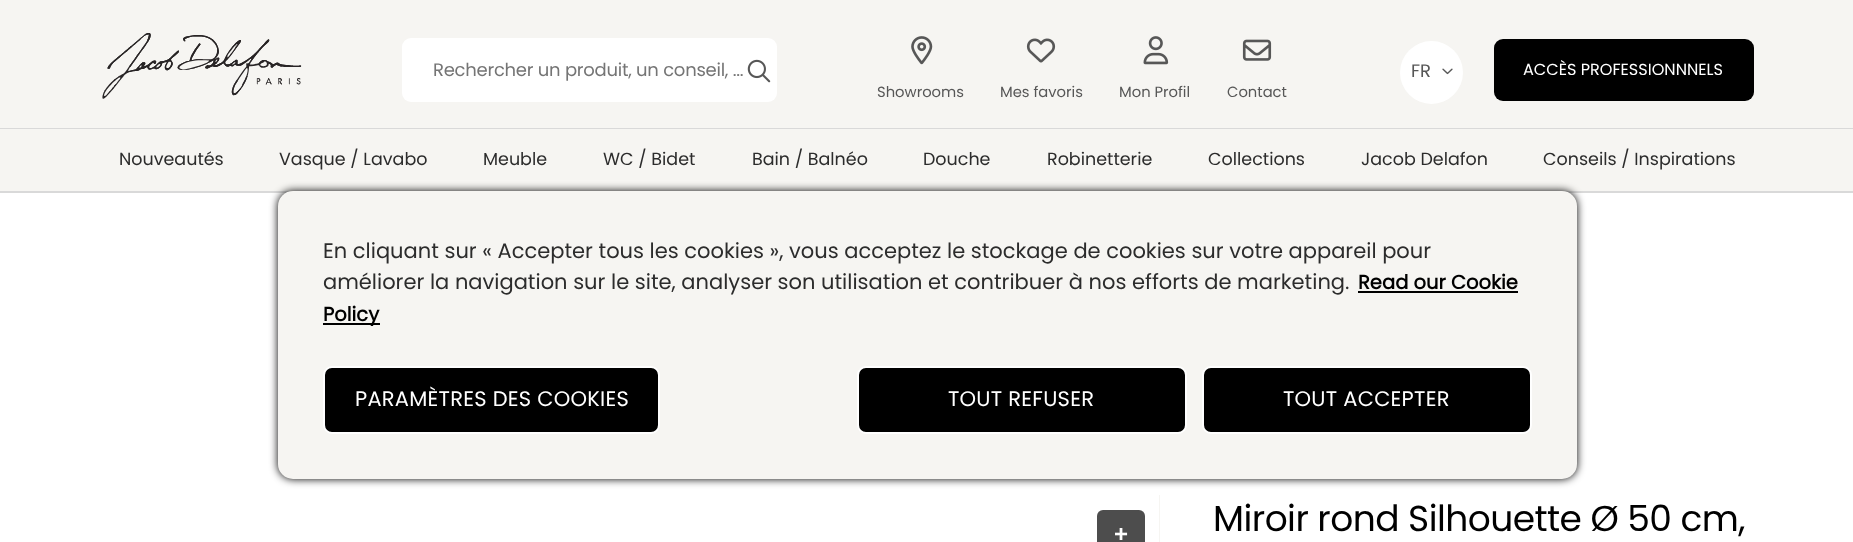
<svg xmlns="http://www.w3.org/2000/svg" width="1853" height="542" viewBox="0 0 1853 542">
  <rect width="100%" height="100%" fill="#fff"/>
  <path d="M0 0h1853v128H0z" fill="#f6f5f2"/>
  <image x="102" y="33" width="200" height="66" href="img/1.png"/>
  <rect x="402" y="38" width="375" height="64" rx="9" fill="#fff"/>
  <image x="747" y="59" width="24" height="24" href="img/2.png"/>
  <circle cx="1431.5" cy="72.5" r="31.5" fill="#fff"/>
  <image x="1442" y="68" width="11" height="7" href="img/3.png"/>
  <rect x="1494" y="39" width="260" height="62" rx="9" fill="#000"/>
  <image x="911" y="36" width="22" height="29" href="img/4.png"/>
  <image x="1026" y="38" width="30" height="25" href="img/5.png"/>
  <image x="1143" y="36" width="26" height="29" href="img/6.png"/>
  <image x="1242" y="39" width="30" height="22" href="img/7.png"/>
  <path d="M0 128h1853v1H0z" fill="#d9d9d9"/>
  <path d="M0 129h1853v62H0z" fill="#f6f5f2"/>
  <path d="M0 191h1853v2H0z" fill="#d9d9d9"/>
  <path d="M1159 495h1v47H1159z" fill="#f6f5f2"/>
  <rect x="1097" y="510" width="48" height="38" rx="6" fill="#4d4d4d"/>
  <rect x="278" y="191" width="1299" height="288" rx="15" fill="#000" filter="blur(4px)"/>
  <rect x="278" y="191" width="1299" height="288" rx="15" fill="#f6f5f2"/>
  <path d="M1358 291h160v2H1358z" fill="#000"/>
  <path d="M323 323h57v2H323z" fill="#000"/>
  <rect x="324" y="367" width="335" height="66" rx="8" fill="#000" stroke="#fff" stroke-width="2"/>
  <rect x="858" y="367" width="328" height="66" rx="8" fill="#000" stroke="#fff" stroke-width="2"/>
  <rect x="1203" y="367" width="328" height="66" rx="8" fill="#000" stroke="#fff" stroke-width="2"/>
  <text x="433" y="76" font-family="Poppins" font-size="18" letter-spacing="-0.25" fill="#757575">Rechercher un produit, un conseil, ...</text>
  <text x="1411" y="77" font-family="Poppins" font-size="18" fill="#575757">FR</text>
  <text x="1523" y="75" font-family="Poppins" font-size="16.1" fill="#fff">ACCÈS PROFESSIONNNELS</text>
  <g font-family="Poppins" font-size="14.75" fill="#575757">
    <text x="877" y="97">Showrooms</text>
    <text x="1000" y="97">Mes favoris</text>
    <text x="1119" y="97">Mon Profil</text>
    <text x="1227" y="97">Contact</text>
  </g>
  <g font-family="Poppins" font-size="17.5" fill="#2c2c2c">
    <text x="119" y="165">Nouveautés</text>
    <text x="279" y="165">Vasque / Lavabo</text>
    <text x="483" y="165">Meuble</text>
    <text x="603" y="165">WC / Bidet</text>
    <text x="752" y="165">Bain / Balnéo</text>
    <text x="923" y="165">Douche</text>
    <text x="1047" y="165">Robinetterie</text>
    <text x="1208" y="165">Collections</text>
    <text x="1361" y="165">Jacob Delafon</text>
    <text x="1543" y="165">Conseils / Inspirations</text>
  </g>
  <text x="1114" y="542" font-family="Liberation Sans" font-size="24" font-weight="bold" fill="#fff">+</text>
  <text x="1213" y="531" font-family="Poppins" font-size="36" letter-spacing="-0.55" fill="#000">Miroir rond Silhouette Ø 50 cm,</text>
  <g font-family="Poppins" font-size="21" fill="#2c2c2c">
    <text x="323" y="258">En cliquant sur « Accepter tous les cookies », vous acceptez le stockage de cookies sur votre appareil pour</text>
    <text x="323" y="289">améliorer la navigation sur le site, analyser son utilisation et contribuer à nos efforts de marketing.</text>
  </g>
  <g font-family="Poppins" font-size="19.5" font-weight="bold" fill="#000">
    <text x="1358" y="289">Read our Cookie</text>
    <text x="323" y="321">Policy</text>
  </g>
  <g font-family="Poppins" font-size="21" letter-spacing="0.25" fill="#fff">
    <text x="355" y="406">PARAMÈTRES DES COOKIES</text>
    <text x="948" y="406">TOUT REFUSER</text>
    <text x="1283" y="406">TOUT ACCEPTER</text>
  </g>
</svg>
